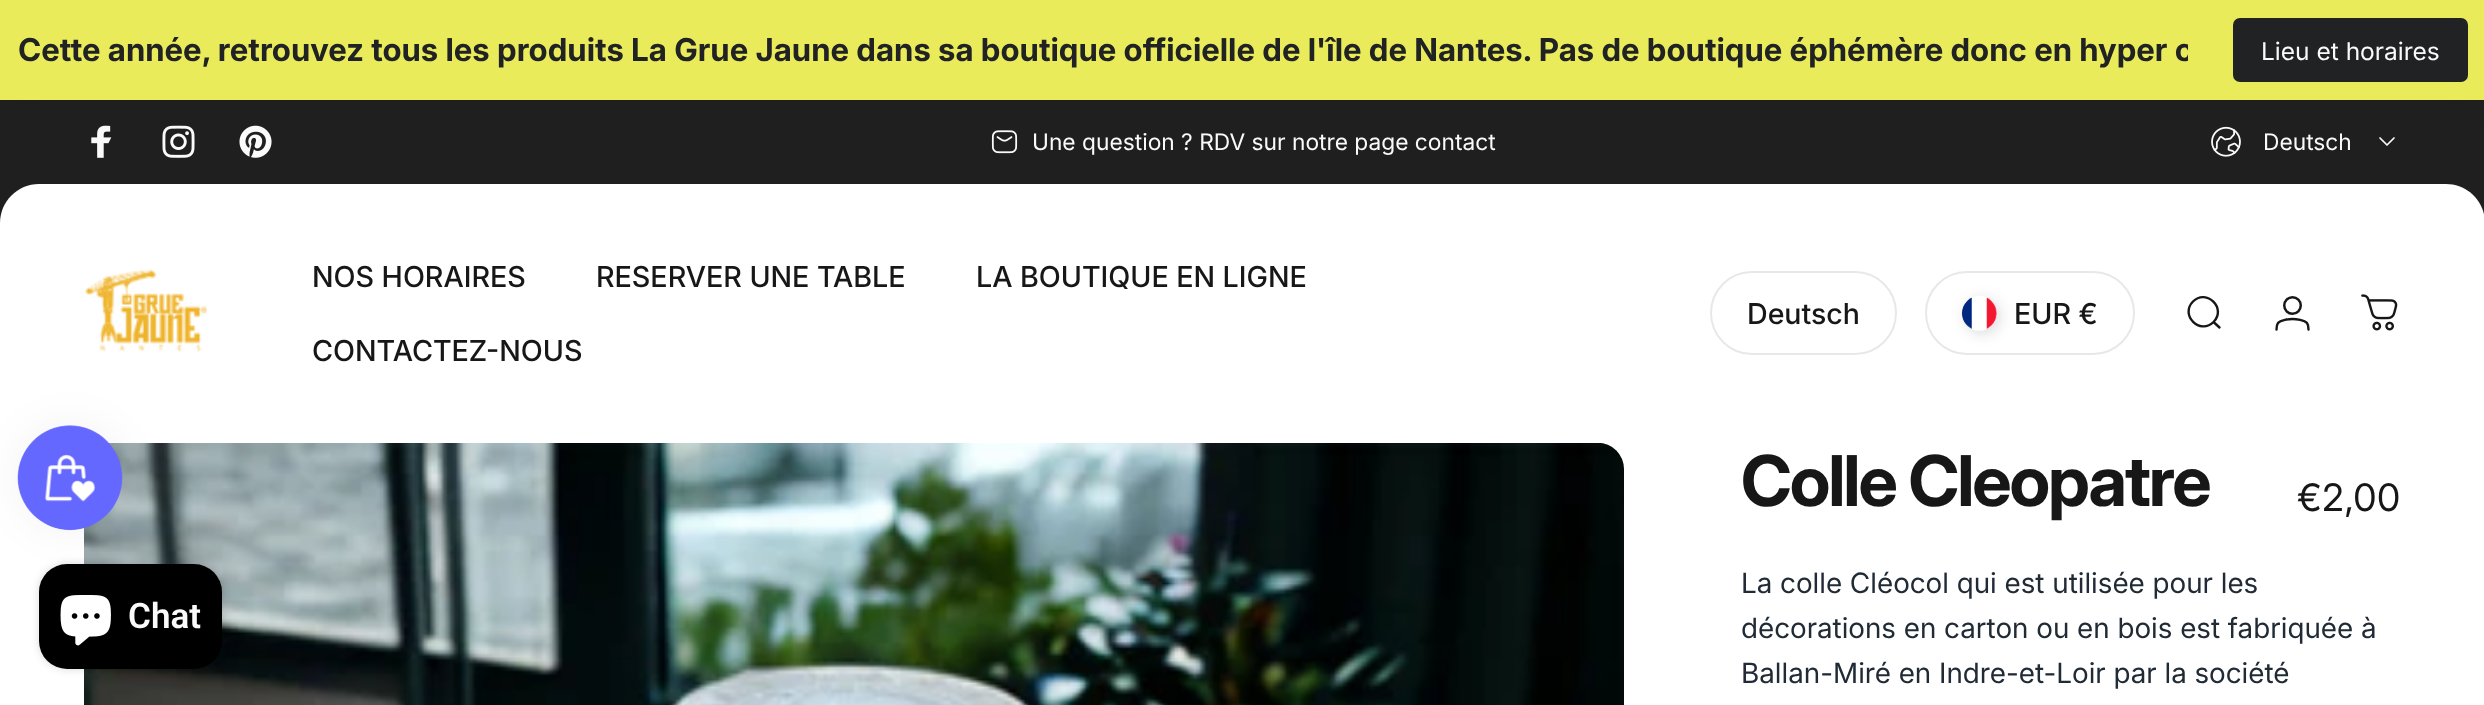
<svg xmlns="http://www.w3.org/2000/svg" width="2484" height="705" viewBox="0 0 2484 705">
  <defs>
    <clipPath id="clip1"><path d="M18 32h2170v36H18z"/></clipPath>
  </defs>
  <rect width="100%" height="100%" fill="#fff"/>
  <path d="M0 0h2484v100H0z" fill="#eaeb5b"/>
  <rect x="2233" y="18" width="235" height="64" rx="7" fill="#202223"/>
  <path d="M0 100h2484v39H0z" fill="#1f1f1f"/>
  <path d="M39 100H2446C2467.5 100 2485 117.5 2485 139V222H0V139C0 117.5 17.5 100 39 100Z" fill="#1f1f1f"/>
  <image x="91" y="125" width="21" height="33" href="img/1.png"/>
  <image x="162" y="125" width="33" height="33" href="img/2.png"/>
  <image x="239" y="125" width="33" height="33" href="img/3.png"/>
  <image x="991" y="130" width="27" height="24" href="img/4.png"/>
  <image x="2211" y="126" width="30" height="31" href="img/5.png"/>
  <path d="M2380 138L2387 145L2394 138" fill="none" stroke="#fafafa" stroke-width="1.7" stroke-linecap="round" stroke-linejoin="round"/>
  <path d="M39 184H2446C2467.5 184 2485 201.5 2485 223V443H0V223C0 201.5 17.5 184 39 184Z" fill="#fff"/>
  <image x="85" y="269" width="122" height="83" href="img/6.png"/>
  <rect x="1711" y="272" width="185" height="82" rx="41" fill="none" stroke="#e8e8e8" stroke-width="2"/>
  <rect x="1926" y="272" width="208" height="82" rx="41" fill="none" stroke="#e8e8e8" stroke-width="2"/>
  <rect x="1965" y="299" width="35" height="35" rx="17.5" fill="#17171726" filter="blur(7px)"/>
  <circle cx="1979.5" cy="313.5" r="17.5" fill="#fafafa"/>
  <image x="1961" y="296" width="36" height="34" href="img/7.png"/>
  <path d="M2219.5 327.5L2213.5 322M2213.5 322C2227 308.5 2206.5 288 2193 301.5C2179.5 315 2200 335.5 2213.5 322Z" fill="none" stroke="#171717" stroke-width="2.4" stroke-linecap="round"/>
  <circle cx="2292.5" cy="305.5" r="8.25" fill="none" stroke="#171717" stroke-width="2.5"/>
  <path d="M2292.5 319C2296 319 2304.5 320 2307 323C2308.5 325 2308.5 327 2308.5 329.5M2292.5 319C2289 319 2280.5 320 2278 323C2276.5 325 2276.5 327 2276.5 329.5" fill="none" stroke="#171717" stroke-width="2.4" stroke-linecap="round"/>
  <image x="2361" y="294" width="37" height="37" href="img/8.png"/>
  <rect x="84" y="443" width="1540" height="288" rx="26" fill="#fafafa"/>
  <image x="84" y="443" width="1540" height="262" href="img/10.png"/>
  <rect x="39" y="564" width="183" height="105" rx="28" fill="#00000026" filter="blur(4.5px)"/>
  <rect x="39" y="564" width="183" height="105" rx="28" fill="#000"/>
  <image x="60" y="595" width="51" height="51" href="img/11.png"/>
  <rect x="18" y="425" width="105" height="105" rx="52.5" fill="#0000000d" filter="blur(22px)"/>
  <image x="17" y="425" width="106" height="106" href="img/9.png"/>
  <g clip-path="url(#clip1)">
    <text x="18" y="61" font-family="'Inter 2'" font-size="31.5" font-weight="bold" fill="#202223">Cette année, retrouvez tous les produits La Grue Jaune dans sa boutique officielle de l'île de Nantes. Pas de boutique éphémère donc en hyper c</text>
  </g>
  <text x="2261" y="60" font-family="Inter" font-size="24.5" fill="#fafafa">Lieu et horaires</text>
  <g font-family="Inter" font-size="22.75" fill="#fafafa">
    <text x="1032" y="150">Une question ? RDV sur notre page contact</text>
    <text x="2263" y="150">Deutsch</text>
  </g>
  <g font-family="Inter" font-size="28.75" font-weight="500" fill="#171717">
    <text x="312" y="287">NOS HORAIRES</text>
    <text x="596" y="287">RESERVER UNE TABLE</text>
    <text x="976" y="287">LA BOUTIQUE EN LIGNE</text>
    <text x="312" y="361">CONTACTEZ-NOUS</text>
    <text x="1747" y="324">Deutsch</text>
    <text x="2014" y="324">EUR €</text>
  </g>
  <text x="1741" y="506" font-family="Inter" font-size="70" font-weight="bold" letter-spacing="-2.1" fill="#171717">Colle Cleopatre</text>
  <text x="2297" y="511" font-family="'Inter 2'" font-size="38" fill="#171717">€2,00</text>
  <g font-family="'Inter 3'" font-size="28" fill="#212b36">
    <text x="1741" y="593">La colle Cléocol qui est utilisée pour les</text>
    <text x="1741" y="638">décorations en carton ou en bois est fabriquée à</text>
    <text x="1741" y="683">Ballan-Miré en Indre-et-Loir par la société</text>
  </g>
  <text x="128" y="628" font-family="Roboto" font-size="35" font-weight="600" fill="#fafafa">Chat</text>
</svg>
